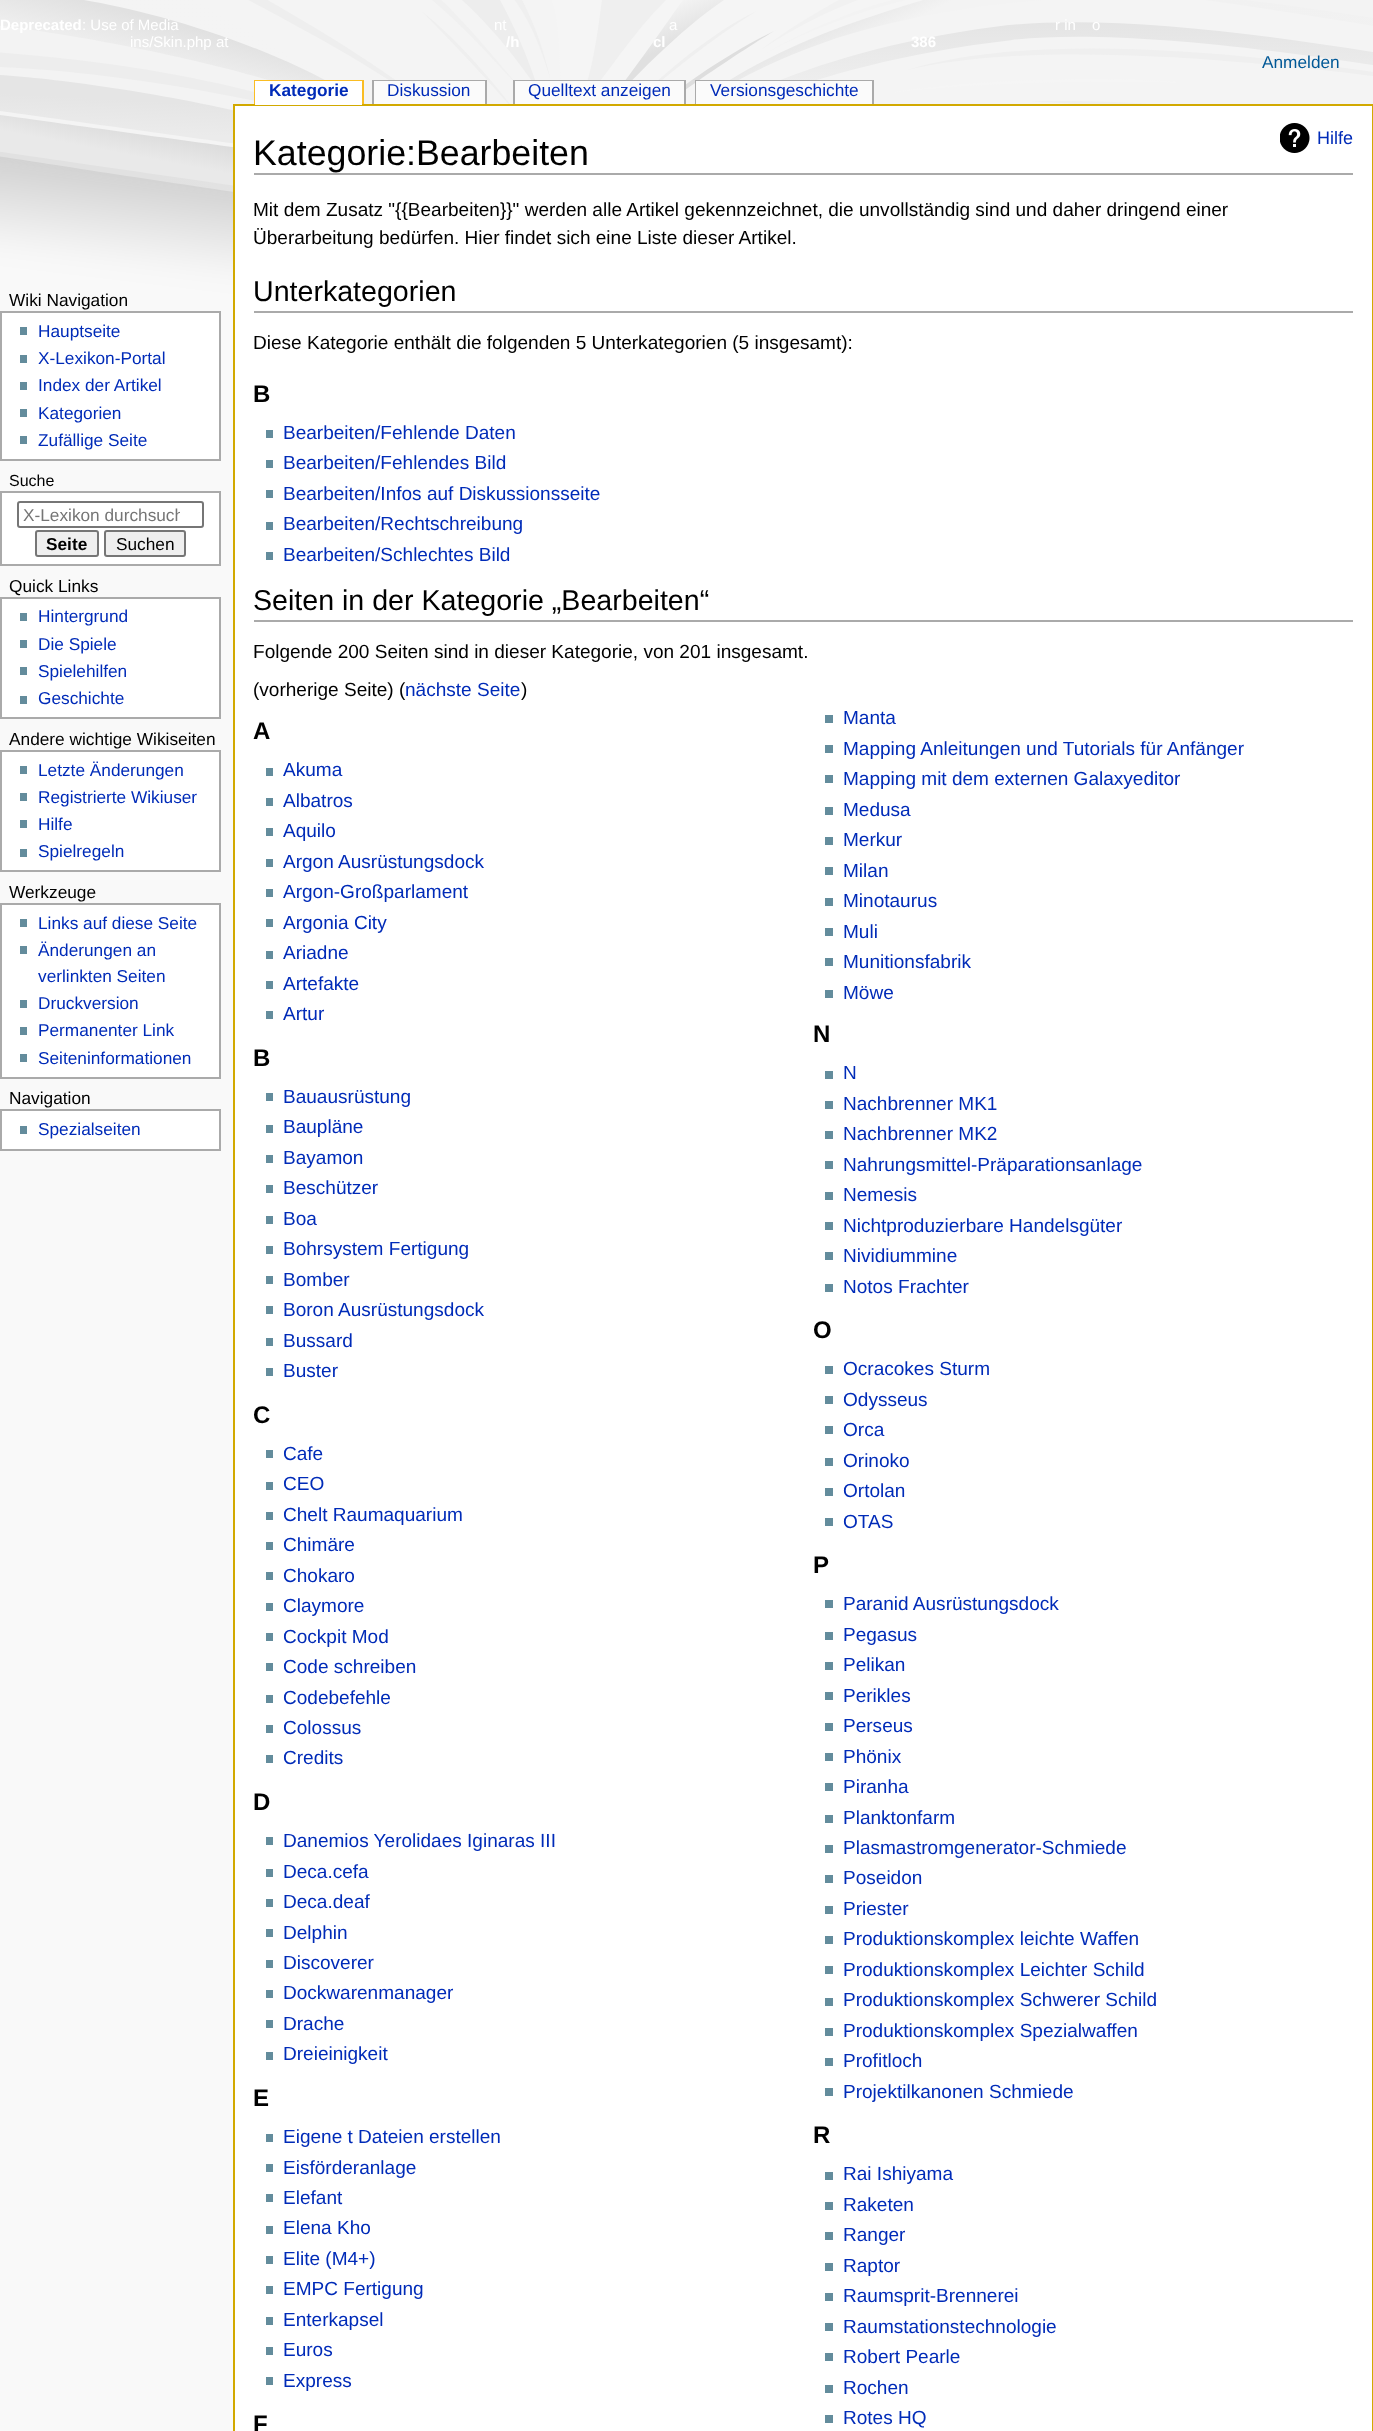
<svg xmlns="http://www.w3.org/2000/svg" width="1373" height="2431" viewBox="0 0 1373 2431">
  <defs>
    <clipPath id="clip1"><path d="M23 506h157v18H23z"/></clipPath>
  </defs>
  <rect width="100%" height="100%" fill="#f9f9f9"/>
  <image x="0" y="0" width="1373" height="315" href="img/1.png"/>
  <path d="M254 80h109v1H254z" fill="#fabd23"/>
  <path d="M362 80h2v24H362z" fill="#fabd23"/>
  <path d="M254 80h2v24H254z" fill="#fabd23"/>
  <path d="M234 105h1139v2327H234z" fill="#fff" stroke="#d2a900" stroke-width="2"/>
  <path d="M255 81h107v24H255z" fill="#fff"/>
  <path d="M372 80h114v1H372z" fill="#aaa"/>
  <path d="M485 80h2v24H485z" fill="#aaa"/>
  <path d="M372 80h2v24H372z" fill="#aaa"/>
  <path d="M374 81h111v23H374z" fill="#fbfbfb"/>
  <path d="M513 80h173v1H513z" fill="#aaa"/>
  <path d="M684 80h2v24H684z" fill="#aaa"/>
  <path d="M513 80h2v24H513z" fill="#aaa"/>
  <path d="M515 81h169v23H515z" fill="#fbfbfb"/>
  <path d="M695 80h178v1H695z" fill="#aaa"/>
  <path d="M872 80h2v24H872z" fill="#aaa"/>
  <path d="M695 80h2v24H695z" fill="#aaa"/>
  <path d="M696 81h176v23H696z" fill="#fbfbfb"/>
  <path d="M1 312h219v148H1z" fill="#fff" stroke="#aaa" stroke-width="2"/>
  <path d="M20 327h7v8H20z" fill="#638c9c"/>
  <path d="M20 355h7v8H20z" fill="#638c9c"/>
  <path d="M20 382h7v8H20z" fill="#638c9c"/>
  <path d="M20 409h7v8H20z" fill="#638c9c"/>
  <path d="M20 436h7v8H20z" fill="#638c9c"/>
  <path d="M1 492h219v73H1z" fill="#fff" stroke="#aaa" stroke-width="2"/>
  <rect x="18" y="502" width="185" height="25" rx="2" fill="none" stroke="#767676" stroke-width="2"/>
  <rect x="36" y="531" width="62" height="25" rx="2" fill="#efefef" stroke="#767676" stroke-width="2"/>
  <rect x="105" y="531" width="80" height="25" rx="2" fill="#efefef" stroke="#767676" stroke-width="2"/>
  <path d="M1 598h219v120H1z" fill="#fff" stroke="#aaa" stroke-width="2"/>
  <path d="M20 613h7v8H20z" fill="#638c9c"/>
  <path d="M20 640h7v8H20z" fill="#638c9c"/>
  <path d="M20 667h7v8H20z" fill="#638c9c"/>
  <path d="M20 696h7v8H20z" fill="#638c9c"/>
  <path d="M1 751h219v120H1z" fill="#fff" stroke="#aaa" stroke-width="2"/>
  <path d="M20 766h7v8H20z" fill="#638c9c"/>
  <path d="M20 793h7v8H20z" fill="#638c9c"/>
  <path d="M20 820h7v8H20z" fill="#638c9c"/>
  <path d="M20 849h7v8H20z" fill="#638c9c"/>
  <path d="M1 904h219v174H1z" fill="#fff" stroke="#aaa" stroke-width="2"/>
  <path d="M20 919h7v8H20z" fill="#638c9c"/>
  <path d="M20 946h7v8H20z" fill="#638c9c"/>
  <path d="M20 1000h7v8H20z" fill="#638c9c"/>
  <path d="M20 1027h7v8H20z" fill="#638c9c"/>
  <path d="M20 1054h7v8H20z" fill="#638c9c"/>
  <path d="M1 1110h219v40H1z" fill="#fff" stroke="#aaa" stroke-width="2"/>
  <path d="M20 1126h7v8H20z" fill="#638c9c"/>
  <image x="1280" y="123" width="30" height="30" href="img/2.png"/>
  <path d="M254 173h1099v2H254z" fill="#aaa"/>
  <path d="M254 311h1099v2H254z" fill="#aaa"/>
  <path d="M266 430h7v8H266z" fill="#638c9c"/>
  <path d="M266 460h7v8H266z" fill="#638c9c"/>
  <path d="M266 490h7v8H266z" fill="#638c9c"/>
  <path d="M266 522h7v8H266z" fill="#638c9c"/>
  <path d="M266 552h7v8H266z" fill="#638c9c"/>
  <path d="M254 620h1099v2H254z" fill="#aaa"/>
  <path d="M266 768h7v8H266z" fill="#638c9c"/>
  <path d="M266 798h7v8H266z" fill="#638c9c"/>
  <path d="M266 828h7v8H266z" fill="#638c9c"/>
  <path d="M266 859h7v8H266z" fill="#638c9c"/>
  <path d="M266 889h7v8H266z" fill="#638c9c"/>
  <path d="M266 919h7v8H266z" fill="#638c9c"/>
  <path d="M266 951h7v8H266z" fill="#638c9c"/>
  <path d="M266 981h7v8H266z" fill="#638c9c"/>
  <path d="M266 1011h7v8H266z" fill="#638c9c"/>
  <path d="M825 715h8v8H825z" fill="#638c9c"/>
  <path d="M825 745h8v8H825z" fill="#638c9c"/>
  <path d="M825 775h8v8H825z" fill="#638c9c"/>
  <path d="M825 807h8v8H825z" fill="#638c9c"/>
  <path d="M825 837h8v8H825z" fill="#638c9c"/>
  <path d="M825 867h8v8H825z" fill="#638c9c"/>
  <path d="M825 898h8v8H825z" fill="#638c9c"/>
  <path d="M825 928h8v8H825z" fill="#638c9c"/>
  <path d="M825 958h8v8H825z" fill="#638c9c"/>
  <path d="M825 990h8v8H825z" fill="#638c9c"/>
  <path d="M266 1093h7v8H266z" fill="#638c9c"/>
  <path d="M266 1125h7v8H266z" fill="#638c9c"/>
  <path d="M266 1155h7v8H266z" fill="#638c9c"/>
  <path d="M266 1185h7v8H266z" fill="#638c9c"/>
  <path d="M266 1216h7v8H266z" fill="#638c9c"/>
  <path d="M266 1246h7v8H266z" fill="#638c9c"/>
  <path d="M266 1276h7v8H266z" fill="#638c9c"/>
  <path d="M266 1306h7v8H266z" fill="#638c9c"/>
  <path d="M266 1338h7v8H266z" fill="#638c9c"/>
  <path d="M266 1368h7v8H266z" fill="#638c9c"/>
  <path d="M825 1071h8v8H825z" fill="#638c9c"/>
  <path d="M825 1101h8v8H825z" fill="#638c9c"/>
  <path d="M825 1131h8v8H825z" fill="#638c9c"/>
  <path d="M825 1161h8v8H825z" fill="#638c9c"/>
  <path d="M825 1192h8v8H825z" fill="#638c9c"/>
  <path d="M825 1222h8v8H825z" fill="#638c9c"/>
  <path d="M825 1252h8v8H825z" fill="#638c9c"/>
  <path d="M825 1284h8v8H825z" fill="#638c9c"/>
  <path d="M266 1450h7v8H266z" fill="#638c9c"/>
  <path d="M266 1482h7v8H266z" fill="#638c9c"/>
  <path d="M266 1512h7v8H266z" fill="#638c9c"/>
  <path d="M266 1542h7v8H266z" fill="#638c9c"/>
  <path d="M266 1572h7v8H266z" fill="#638c9c"/>
  <path d="M266 1603h7v8H266z" fill="#638c9c"/>
  <path d="M266 1633h7v8H266z" fill="#638c9c"/>
  <path d="M266 1663h7v8H266z" fill="#638c9c"/>
  <path d="M266 1695h7v8H266z" fill="#638c9c"/>
  <path d="M266 1725h7v8H266z" fill="#638c9c"/>
  <path d="M266 1755h7v8H266z" fill="#638c9c"/>
  <path d="M825 1366h8v8H825z" fill="#638c9c"/>
  <path d="M825 1396h8v8H825z" fill="#638c9c"/>
  <path d="M825 1426h8v8H825z" fill="#638c9c"/>
  <path d="M825 1458h8v8H825z" fill="#638c9c"/>
  <path d="M825 1488h8v8H825z" fill="#638c9c"/>
  <path d="M825 1518h8v8H825z" fill="#638c9c"/>
  <path d="M266 1837h7v8H266z" fill="#638c9c"/>
  <path d="M266 1869h7v8H266z" fill="#638c9c"/>
  <path d="M266 1899h7v8H266z" fill="#638c9c"/>
  <path d="M266 1929h7v8H266z" fill="#638c9c"/>
  <path d="M266 1960h7v8H266z" fill="#638c9c"/>
  <path d="M266 1990h7v8H266z" fill="#638c9c"/>
  <path d="M266 2020h7v8H266z" fill="#638c9c"/>
  <path d="M266 2052h7v8H266z" fill="#638c9c"/>
  <path d="M825 1600h8v8H825z" fill="#638c9c"/>
  <path d="M825 1632h8v8H825z" fill="#638c9c"/>
  <path d="M825 1662h8v8H825z" fill="#638c9c"/>
  <path d="M825 1692h8v8H825z" fill="#638c9c"/>
  <path d="M825 1723h8v8H825z" fill="#638c9c"/>
  <path d="M825 1753h8v8H825z" fill="#638c9c"/>
  <path d="M825 1783h8v8H825z" fill="#638c9c"/>
  <path d="M825 1815h8v8H825z" fill="#638c9c"/>
  <path d="M825 1845h8v8H825z" fill="#638c9c"/>
  <path d="M825 1875h8v8H825z" fill="#638c9c"/>
  <path d="M825 1906h8v8H825z" fill="#638c9c"/>
  <path d="M825 1936h8v8H825z" fill="#638c9c"/>
  <path d="M825 1966h8v8H825z" fill="#638c9c"/>
  <path d="M825 1998h8v8H825z" fill="#638c9c"/>
  <path d="M825 2028h8v8H825z" fill="#638c9c"/>
  <path d="M825 2058h8v8H825z" fill="#638c9c"/>
  <path d="M825 2088h8v8H825z" fill="#638c9c"/>
  <path d="M266 2134h7v8H266z" fill="#638c9c"/>
  <path d="M266 2164h7v8H266z" fill="#638c9c"/>
  <path d="M266 2194h7v8H266z" fill="#638c9c"/>
  <path d="M266 2226h7v8H266z" fill="#638c9c"/>
  <path d="M266 2256h7v8H266z" fill="#638c9c"/>
  <path d="M266 2286h7v8H266z" fill="#638c9c"/>
  <path d="M266 2317h7v8H266z" fill="#638c9c"/>
  <path d="M266 2347h7v8H266z" fill="#638c9c"/>
  <path d="M266 2377h7v8H266z" fill="#638c9c"/>
  <path d="M825 2172h8v8H825z" fill="#638c9c"/>
  <path d="M825 2202h8v8H825z" fill="#638c9c"/>
  <path d="M825 2232h8v8H825z" fill="#638c9c"/>
  <path d="M825 2263h8v8H825z" fill="#638c9c"/>
  <path d="M825 2293h8v8H825z" fill="#638c9c"/>
  <path d="M825 2323h8v8H825z" fill="#638c9c"/>
  <path d="M825 2353h8v8H825z" fill="#638c9c"/>
  <path d="M825 2385h8v8H825z" fill="#638c9c"/>
  <path d="M825 2415h8v8H825z" fill="#638c9c"/>
  <text x="0" y="30" font-family="Liberation Sans" font-size="15" font-weight="bold" fill="#fff">Deprecated</text>
  <g font-family="Liberation Sans" font-size="15" fill="#fff">
    <text x="82" y="30">: Use of Media</text>
    <text x="494" y="30">nt</text>
    <text x="669" y="30">a</text>
    <text x="1055" y="30">r in</text>
    <text x="1092" y="30">o</text>
    <text x="130" y="47">ins/Skin.php at</text>
  </g>
  <g font-family="Liberation Sans" font-size="15" font-weight="bold" fill="#fff">
    <text x="506" y="47">/h</text>
    <text x="653" y="47">cl</text>
    <text x="911" y="47">386</text>
  </g>
  <text x="1262" y="68" font-family="Liberation Sans" font-size="17.25" fill="#005896">Anmelden</text>
  <text x="269" y="96" font-family="Liberation Sans" font-size="17.25" font-weight="bold" fill="#002bb8">Kategorie</text>
  <g font-family="Liberation Sans" font-size="17.25" fill="#002bb8">
    <text x="387" y="96">Diskussion</text>
    <text x="528" y="96">Quelltext anzeigen</text>
    <text x="710" y="96">Versionsgeschichte</text>
  </g>
  <text x="9" y="306" font-family="Liberation Sans" font-size="17.3" fill="#000">Wiki Navigation</text>
  <g font-family="Liberation Sans" font-size="17.25" fill="#002bb8">
    <text x="38" y="337">Hauptseite</text>
    <text x="38" y="364">X-Lexikon-Portal</text>
    <text x="38" y="391">Index der Artikel</text>
    <text x="38" y="419">Kategorien</text>
    <text x="38" y="446">Zufällige Seite</text>
  </g>
  <text x="9" y="486" font-family="Liberation Sans" font-size="16" fill="#000">Suche</text>
  <g clip-path="url(#clip1)">
    <text x="23" y="521" font-family="Liberation Sans" font-size="17.25" fill="#757575">X-Lexikon durchsuch</text>
  </g>
  <text x="46" y="550" font-family="Liberation Sans" font-size="17.25" font-weight="bold" fill="#000">Seite</text>
  <text x="116" y="550" font-family="Liberation Sans" font-size="17.25" fill="#000">Suchen</text>
  <text x="9" y="592" font-family="Liberation Sans" font-size="17.3" fill="#000">Quick Links</text>
  <g font-family="Liberation Sans" font-size="17.25" fill="#002bb8">
    <text x="38" y="622">Hintergrund</text>
    <text x="38" y="650">Die Spiele</text>
    <text x="38" y="677">Spielehilfen</text>
    <text x="38" y="704">Geschichte</text>
  </g>
  <text x="9" y="745" font-family="Liberation Sans" font-size="17.3" fill="#000">Andere wichtige Wikiseiten</text>
  <g font-family="Liberation Sans" font-size="17.25" fill="#002bb8">
    <text x="38" y="776">Letzte Änderungen</text>
    <text x="38" y="803">Registrierte Wikiuser</text>
    <text x="38" y="830">Hilfe</text>
    <text x="38" y="857">Spielregeln</text>
  </g>
  <text x="9" y="898" font-family="Liberation Sans" font-size="17.3" fill="#000">Werkzeuge</text>
  <g font-family="Liberation Sans" font-size="17.25" fill="#002bb8">
    <text x="38" y="929">Links auf diese Seite</text>
    <text x="38" y="956">Änderungen an</text>
    <text x="38" y="982">verlinkten Seiten</text>
    <text x="38" y="1009">Druckversion</text>
    <text x="38" y="1036">Permanenter Link</text>
    <text x="38" y="1064">Seiteninformationen</text>
  </g>
  <text x="9" y="1104" font-family="Liberation Sans" font-size="17.3" fill="#000">Navigation</text>
  <text x="38" y="1135" font-family="Liberation Sans" font-size="17.25" fill="#002bb8">Spezialseiten</text>
  <text x="1317" y="144" font-family="Liberation Sans" font-size="18" fill="#002bb8">Hilfe</text>
  <text x="253" y="165" font-family="Liberation Sans" font-size="35.75" fill="#000">Kategorie:Bearbeiten</text>
  <g font-family="Liberation Sans" font-size="19.05" fill="#000">
    <text x="253" y="216">Mit dem Zusatz "{{Bearbeiten}}" werden alle Artikel gekennzeichnet, die unvollständig sind und daher dringend einer</text>
    <text x="253" y="244">Überarbeitung bedürfen. Hier findet sich eine Liste dieser Artikel.</text>
  </g>
  <text x="253" y="301" font-family="Liberation Sans" font-size="28.6" fill="#000">Unterkategorien</text>
  <text x="253" y="349" font-family="Liberation Sans" font-size="19.05" fill="#000">Diese Kategorie enthält die folgenden 5 Unterkategorien (5 insgesamt):</text>
  <text x="253" y="402" font-family="Liberation Sans" font-size="24" font-weight="bold" fill="#000">B</text>
  <g font-family="Liberation Sans" font-size="19.05" fill="#002bb8">
    <text x="283" y="439">Bearbeiten/Fehlende Daten</text>
    <text x="283" y="469">Bearbeiten/Fehlendes Bild</text>
    <text x="283" y="500">Bearbeiten/Infos auf Diskussionsseite</text>
    <text x="283" y="530">Bearbeiten/Rechtschreibung</text>
    <text x="283" y="561">Bearbeiten/Schlechtes Bild</text>
  </g>
  <text x="253" y="610" font-family="Liberation Sans" font-size="28.6" fill="#000">Seiten in der Kategorie „Bearbeiten“</text>
  <g font-family="Liberation Sans" font-size="19.05" fill="#000">
    <text x="253" y="658">Folgende 200 Seiten sind in dieser Kategorie, von 201 insgesamt.</text>
    <text x="253" y="696">(vorherige Seite) (</text>
  </g>
  <text x="405" y="696" font-family="Liberation Sans" font-size="19.05" fill="#002bb8">nächste Seite</text>
  <text x="521" y="696" font-family="Liberation Sans" font-size="19.05" fill="#000">)</text>
  <text x="253" y="739" font-family="Liberation Sans" font-size="24" font-weight="bold" fill="#000">A</text>
  <g font-family="Liberation Sans" font-size="19.05" fill="#002bb8">
    <text x="283" y="776">Akuma</text>
    <text x="283" y="807">Albatros</text>
    <text x="283" y="837">Aquilo</text>
    <text x="283" y="868">Argon Ausrüstungsdock</text>
    <text x="283" y="898">Argon-Großparlament</text>
    <text x="283" y="929">Argonia City</text>
    <text x="283" y="959">Ariadne</text>
    <text x="283" y="990">Artefakte</text>
    <text x="283" y="1020">Artur</text>
    <text x="843" y="724">Manta</text>
    <text x="843" y="755">Mapping Anleitungen und Tutorials für Anfänger</text>
    <text x="843" y="785">Mapping mit dem externen Galaxyeditor</text>
    <text x="843" y="816">Medusa</text>
    <text x="843" y="846">Merkur</text>
    <text x="843" y="877">Milan</text>
    <text x="843" y="907">Minotaurus</text>
    <text x="843" y="938">Muli</text>
    <text x="843" y="968">Munitionsfabrik</text>
    <text x="843" y="999">Möwe</text>
  </g>
  <text x="253" y="1066" font-family="Liberation Sans" font-size="24" font-weight="bold" fill="#000">B</text>
  <g font-family="Liberation Sans" font-size="19.05" fill="#002bb8">
    <text x="283" y="1103">Bauausrüstung</text>
    <text x="283" y="1133">Baupläne</text>
    <text x="283" y="1164">Bayamon</text>
    <text x="283" y="1194">Beschützer</text>
    <text x="283" y="1225">Boa</text>
    <text x="283" y="1255">Bohrsystem Fertigung</text>
    <text x="283" y="1286">Bomber</text>
    <text x="283" y="1316">Boron Ausrüstungsdock</text>
    <text x="283" y="1347">Bussard</text>
    <text x="283" y="1377">Buster</text>
  </g>
  <text x="813" y="1042" font-family="Liberation Sans" font-size="24" font-weight="bold" fill="#000">N</text>
  <g font-family="Liberation Sans" font-size="19.05" fill="#002bb8">
    <text x="843" y="1079">N</text>
    <text x="843" y="1110">Nachbrenner MK1</text>
    <text x="843" y="1140">Nachbrenner MK2</text>
    <text x="843" y="1171">Nahrungsmittel-Präparationsanlage</text>
    <text x="843" y="1201">Nemesis</text>
    <text x="843" y="1232">Nichtproduzierbare Handelsgüter</text>
    <text x="843" y="1262">Nividiummine</text>
    <text x="843" y="1293">Notos Frachter</text>
  </g>
  <text x="253" y="1423" font-family="Liberation Sans" font-size="24" font-weight="bold" fill="#000">C</text>
  <g font-family="Liberation Sans" font-size="19.05" fill="#002bb8">
    <text x="283" y="1460">Cafe</text>
    <text x="283" y="1490">CEO</text>
    <text x="283" y="1521">Chelt Raumaquarium</text>
    <text x="283" y="1551">Chimäre</text>
    <text x="283" y="1582">Chokaro</text>
    <text x="283" y="1612">Claymore</text>
    <text x="283" y="1643">Cockpit Mod</text>
    <text x="283" y="1673">Code schreiben</text>
    <text x="283" y="1704">Codebefehle</text>
    <text x="283" y="1734">Colossus</text>
    <text x="283" y="1764">Credits</text>
  </g>
  <text x="813" y="1338" font-family="Liberation Sans" font-size="24" font-weight="bold" fill="#000">O</text>
  <g font-family="Liberation Sans" font-size="19.05" fill="#002bb8">
    <text x="843" y="1375">Ocracokes Sturm</text>
    <text x="843" y="1406">Odysseus</text>
    <text x="843" y="1436">Orca</text>
    <text x="843" y="1467">Orinoko</text>
    <text x="843" y="1497">Ortolan</text>
    <text x="843" y="1528">OTAS</text>
  </g>
  <text x="253" y="1810" font-family="Liberation Sans" font-size="24" font-weight="bold" fill="#000">D</text>
  <g font-family="Liberation Sans" font-size="19.05" fill="#002bb8">
    <text x="283" y="1847">Danemios Yerolidaes Iginaras III</text>
    <text x="283" y="1878">Deca.cefa</text>
    <text x="283" y="1908">Deca.deaf</text>
    <text x="283" y="1939">Delphin</text>
    <text x="283" y="1969">Discoverer</text>
    <text x="283" y="1999">Dockwarenmanager</text>
    <text x="283" y="2030">Drache</text>
    <text x="283" y="2060">Dreieinigkeit</text>
  </g>
  <text x="813" y="1573" font-family="Liberation Sans" font-size="24" font-weight="bold" fill="#000">P</text>
  <g font-family="Liberation Sans" font-size="19.05" fill="#002bb8">
    <text x="843" y="1610">Paranid Ausrüstungsdock</text>
    <text x="843" y="1641">Pegasus</text>
    <text x="843" y="1671">Pelikan</text>
    <text x="843" y="1702">Perikles</text>
    <text x="843" y="1732">Perseus</text>
    <text x="843" y="1763">Phönix</text>
    <text x="843" y="1793">Piranha</text>
    <text x="843" y="1824">Planktonfarm</text>
    <text x="843" y="1854">Plasmastromgenerator-Schmiede</text>
    <text x="843" y="1884">Poseidon</text>
    <text x="843" y="1915">Priester</text>
    <text x="843" y="1945">Produktionskomplex leichte Waffen</text>
    <text x="843" y="1976">Produktionskomplex Leichter Schild</text>
    <text x="843" y="2006">Produktionskomplex Schwerer Schild</text>
    <text x="843" y="2037">Produktionskomplex Spezialwaffen</text>
    <text x="843" y="2067">Profitloch</text>
    <text x="843" y="2098">Projektilkanonen Schmiede</text>
  </g>
  <text x="253" y="2106" font-family="Liberation Sans" font-size="24" font-weight="bold" fill="#000">E</text>
  <g font-family="Liberation Sans" font-size="19.05" fill="#002bb8">
    <text x="283" y="2143">Eigene t Dateien erstellen</text>
    <text x="283" y="2174">Eisförderanlage</text>
    <text x="283" y="2204">Elefant</text>
    <text x="283" y="2234">Elena Kho</text>
    <text x="283" y="2265">Elite (M4+)</text>
    <text x="283" y="2295">EMPC Fertigung</text>
    <text x="283" y="2326">Enterkapsel</text>
    <text x="283" y="2356">Euros</text>
    <text x="283" y="2387">Express</text>
  </g>
  <text x="813" y="2143" font-family="Liberation Sans" font-size="24" font-weight="bold" fill="#000">R</text>
  <g font-family="Liberation Sans" font-size="19.05" fill="#002bb8">
    <text x="843" y="2180">Rai Ishiyama</text>
    <text x="843" y="2211">Raketen</text>
    <text x="843" y="2241">Ranger</text>
    <text x="843" y="2272">Raptor</text>
    <text x="843" y="2302">Raumsprit-Brennerei</text>
    <text x="843" y="2333">Raumstationstechnologie</text>
    <text x="843" y="2363">Robert Pearle</text>
    <text x="843" y="2394">Rochen</text>
    <text x="843" y="2424">Rotes HQ</text>
  </g>
  <text x="253" y="2432" font-family="Liberation Sans" font-size="24" font-weight="bold" fill="#000">F</text>
</svg>
